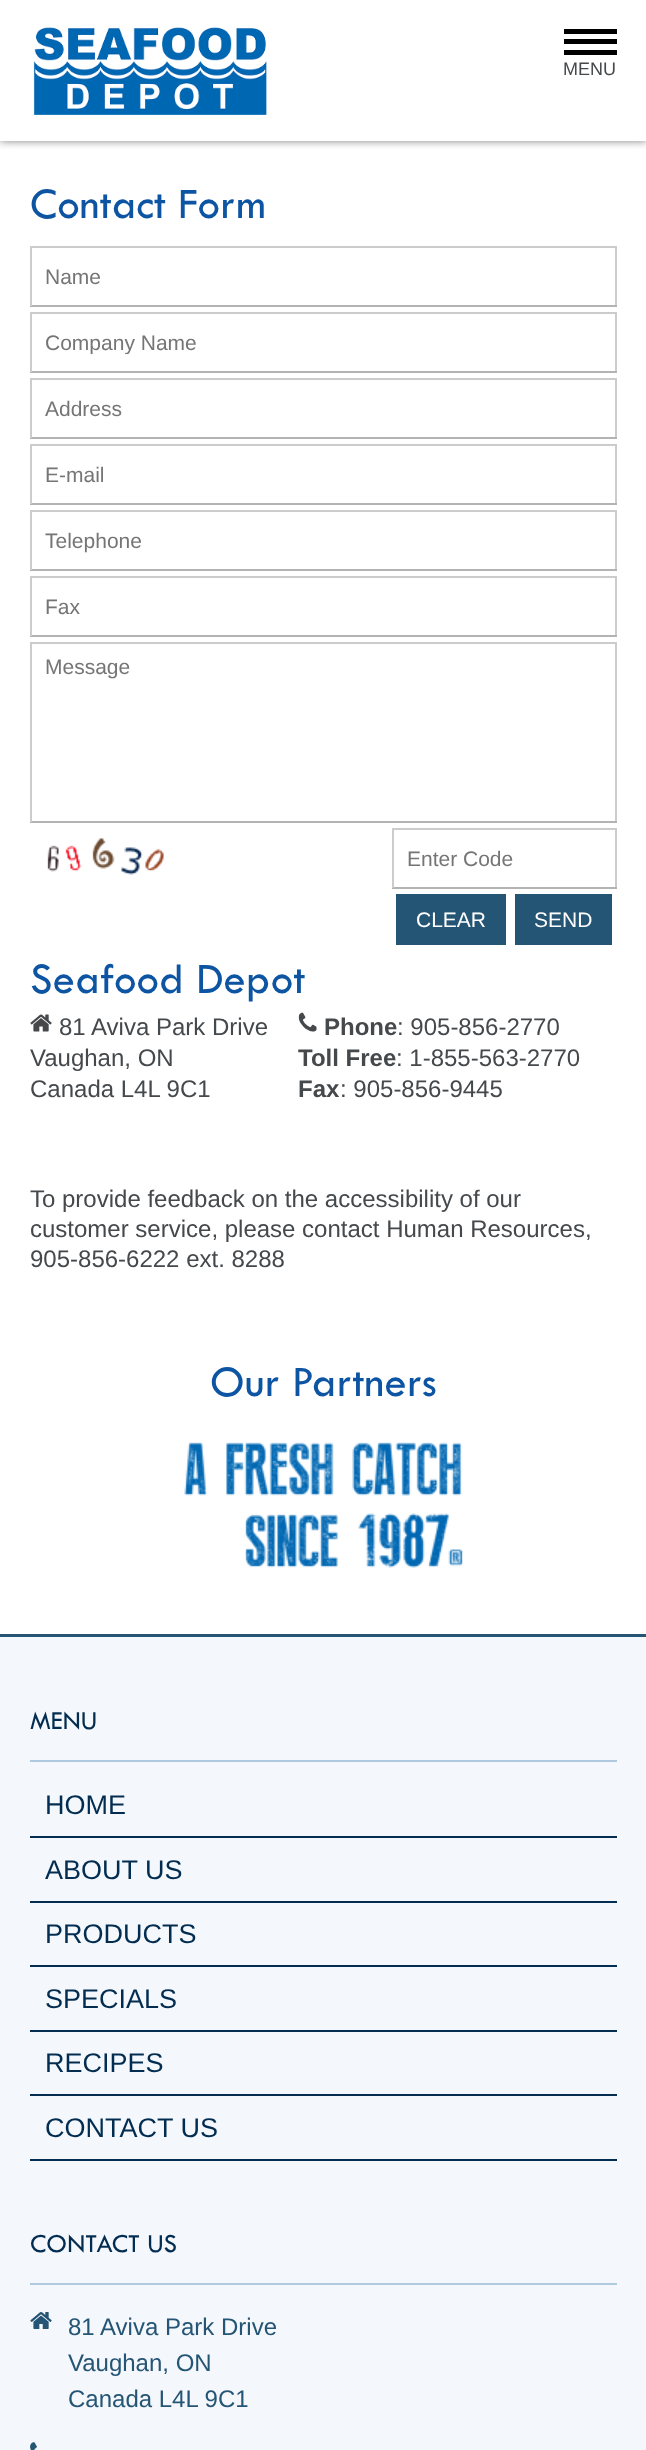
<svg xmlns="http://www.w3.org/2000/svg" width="646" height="2450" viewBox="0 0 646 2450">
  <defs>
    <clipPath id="clip1"><path d="M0 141h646v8H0z"/></clipPath>
    <clipPath id="clip2"><path d="M45 330h557v24H45z"/></clipPath>
  </defs>
  <rect width="100%" height="100%" fill="#fff"/>
  <g clip-path="url(#clip1)">
    <path d="M0 0h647v141H0z" fill="#00000080" filter="blur(4.5px)"/>
  </g>
  <image x="33" y="27" width="234" height="88" href="img/1.png"/>
  <path d="M564 39h53v5H564z" fill="#000"/>
  <path d="M564 29h53v5H564z" fill="#000"/>
  <path d="M564 50h53v5H564z" fill="#000"/>
  <path d="M30 246h587v2H30z" fill="#ccc"/>
  <path d="M615 246h2v60H615z" fill="#ccc"/>
  <path d="M30 305h587v2H30z" fill="#b3b3b3"/>
  <path d="M30 246h2v60H30z" fill="#ccc"/>
  <path d="M30 312h587v2H30z" fill="#ccc"/>
  <path d="M615 312h2v60H615z" fill="#ccc"/>
  <path d="M30 371h587v2H30z" fill="#b3b3b3"/>
  <path d="M30 312h2v60H30z" fill="#ccc"/>
  <path d="M30 378h587v2H30z" fill="#ccc"/>
  <path d="M615 378h2v60H615z" fill="#ccc"/>
  <path d="M30 437h587v2H30z" fill="#b3b3b3"/>
  <path d="M30 378h2v60H30z" fill="#ccc"/>
  <path d="M30 444h587v2H30z" fill="#ccc"/>
  <path d="M615 444h2v60H615z" fill="#ccc"/>
  <path d="M30 503h587v2H30z" fill="#b3b3b3"/>
  <path d="M30 444h2v60H30z" fill="#ccc"/>
  <path d="M30 510h587v2H30z" fill="#ccc"/>
  <path d="M615 510h2v60H615z" fill="#ccc"/>
  <path d="M30 569h587v2H30z" fill="#b3b3b3"/>
  <path d="M30 510h2v60H30z" fill="#ccc"/>
  <path d="M30 576h587v2H30z" fill="#ccc"/>
  <path d="M615 576h2v60H615z" fill="#ccc"/>
  <path d="M30 635h587v2H30z" fill="#b3b3b3"/>
  <path d="M30 576h2v60H30z" fill="#ccc"/>
  <path d="M30 642h587v2H30z" fill="#ccc"/>
  <path d="M615 642h2v180H615z" fill="#ccc"/>
  <path d="M30 821h587v2H30z" fill="#b3b3b3"/>
  <path d="M30 642h2v180H30z" fill="#ccc"/>
  <image x="47" y="838" width="117" height="37" href="img/2.png"/>
  <path d="M392 828h225v2H392z" fill="#ccc"/>
  <path d="M615 828h2v60H615z" fill="#ccc"/>
  <path d="M392 887h225v2H392z" fill="#b3b3b3"/>
  <path d="M392 828h2v60H392z" fill="#ccc"/>
  <path d="M396 894h110v51H396z" fill="#255575"/>
  <path d="M515 894h97v51H515z" fill="#255575"/>
  <image x="30" y="1014" width="22" height="18" href="img/3.png"/>
  <image x="298" y="1012" width="19" height="20" href="img/4.png"/>
  <image x="184" y="1442" width="279" height="126" href="img/5.png"/>
  <path d="M0 1637h646v813H0z" fill="#f4f7fb"/>
  <path d="M0 1634h646v3H0z" fill="#255575"/>
  <path d="M30 1760h587v2H30z" fill="#afc9de"/>
  <path d="M30 1836h587v2H30z" fill="#022c50"/>
  <path d="M30 1901h587v2H30z" fill="#022c50"/>
  <path d="M30 1965h587v2H30z" fill="#022c50"/>
  <path d="M30 2030h587v2H30z" fill="#022c50"/>
  <path d="M30 2094h587v2H30z" fill="#022c50"/>
  <path d="M30 2159h587v2H30z" fill="#022c50"/>
  <path d="M30 2283h587v2H30z" fill="#afc9de"/>
  <image x="30" y="2312" width="22" height="17" href="img/6.png"/>
  <image x="30" y="2442" width="7" height="8" href="img/7.png"/>
  <text x="563" y="75" font-family="Liberation Sans" font-size="18" fill="#45494c">MENU</text>
  <text x="30" y="218" font-family="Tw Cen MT" font-size="45" fill="#0d55a2">Contact Form</text>
  <text x="45" y="284" font-family="Liberation Sans" font-size="21" fill="#757575">Name</text>
  <g clip-path="url(#clip2)">
    <text x="45" y="350" font-family="Liberation Sans" font-size="21" fill="#757575">Company Name</text>
  </g>
  <g font-family="Liberation Sans" font-size="21" fill="#757575">
    <text x="45" y="416">Address</text>
    <text x="45" y="482">E-mail</text>
    <text x="45" y="548">Telephone</text>
    <text x="45" y="614">Fax</text>
    <text x="45" y="674">Message</text>
    <text x="407" y="866">Enter Code</text>
  </g>
  <g font-family="Liberation Sans" font-size="21" fill="#fff">
    <text x="416" y="927">CLEAR</text>
    <text x="534" y="927">SEND</text>
  </g>
  <text x="30" y="993" font-family="Tw Cen MT" font-size="45" fill="#0d55a2">Seafood Depot</text>
  <g font-family="Liberation Sans" font-size="24" fill="#45494c">
    <text x="59" y="1035">81 Aviva Park Drive</text>
    <text x="30" y="1066">Vaughan, ON</text>
    <text x="30" y="1097">Canada L4L 9C1</text>
  </g>
  <text x="324" y="1035" font-family="Liberation Sans" font-size="24" font-weight="bold" fill="#45494c">Phone</text>
  <text x="397" y="1035" font-family="Liberation Sans" font-size="24" fill="#45494c">: 905-856-2770</text>
  <text x="298" y="1066" font-family="Liberation Sans" font-size="24" font-weight="bold" fill="#45494c">Toll Free</text>
  <text x="396" y="1066" font-family="Liberation Sans" font-size="24" fill="#45494c">: 1-855-563-2770</text>
  <text x="298" y="1097" font-family="Liberation Sans" font-size="24" font-weight="bold" fill="#45494c">Fax</text>
  <g font-family="Liberation Sans" font-size="24" fill="#45494c">
    <text x="340" y="1097">: 905-856-9445</text>
    <text x="30" y="1207">To provide feedback on the accessibility of our</text>
    <text x="30" y="1237">customer service, please contact Human Resources,</text>
    <text x="30" y="1267">905-856-6222 ext. 8288</text>
  </g>
  <text x="210" y="1396" font-family="Tw Cen MT" font-size="45" fill="#0d55a2">Our Partners</text>
  <text x="30" y="1729" font-family="Tw Cen MT" font-size="27" fill="#022c50">MENU</text>
  <g font-family="Liberation Sans" font-size="27" fill="#022c50">
    <text x="45" y="1814">HOME</text>
    <text x="45" y="1879">ABOUT US</text>
    <text x="45" y="1943">PRODUCTS</text>
    <text x="45" y="2008">SPECIALS</text>
    <text x="45" y="2072">RECIPES</text>
    <text x="45" y="2137">CONTACT US</text>
  </g>
  <text x="30" y="2252" font-family="Tw Cen MT" font-size="27" fill="#022c50">CONTACT US</text>
  <g font-family="Liberation Sans" font-size="24" fill="#255575">
    <text x="68" y="2335">81 Aviva Park Drive</text>
    <text x="68" y="2371">Vaughan, ON</text>
    <text x="68" y="2407">Canada L4L 9C1</text>
  </g>
</svg>
